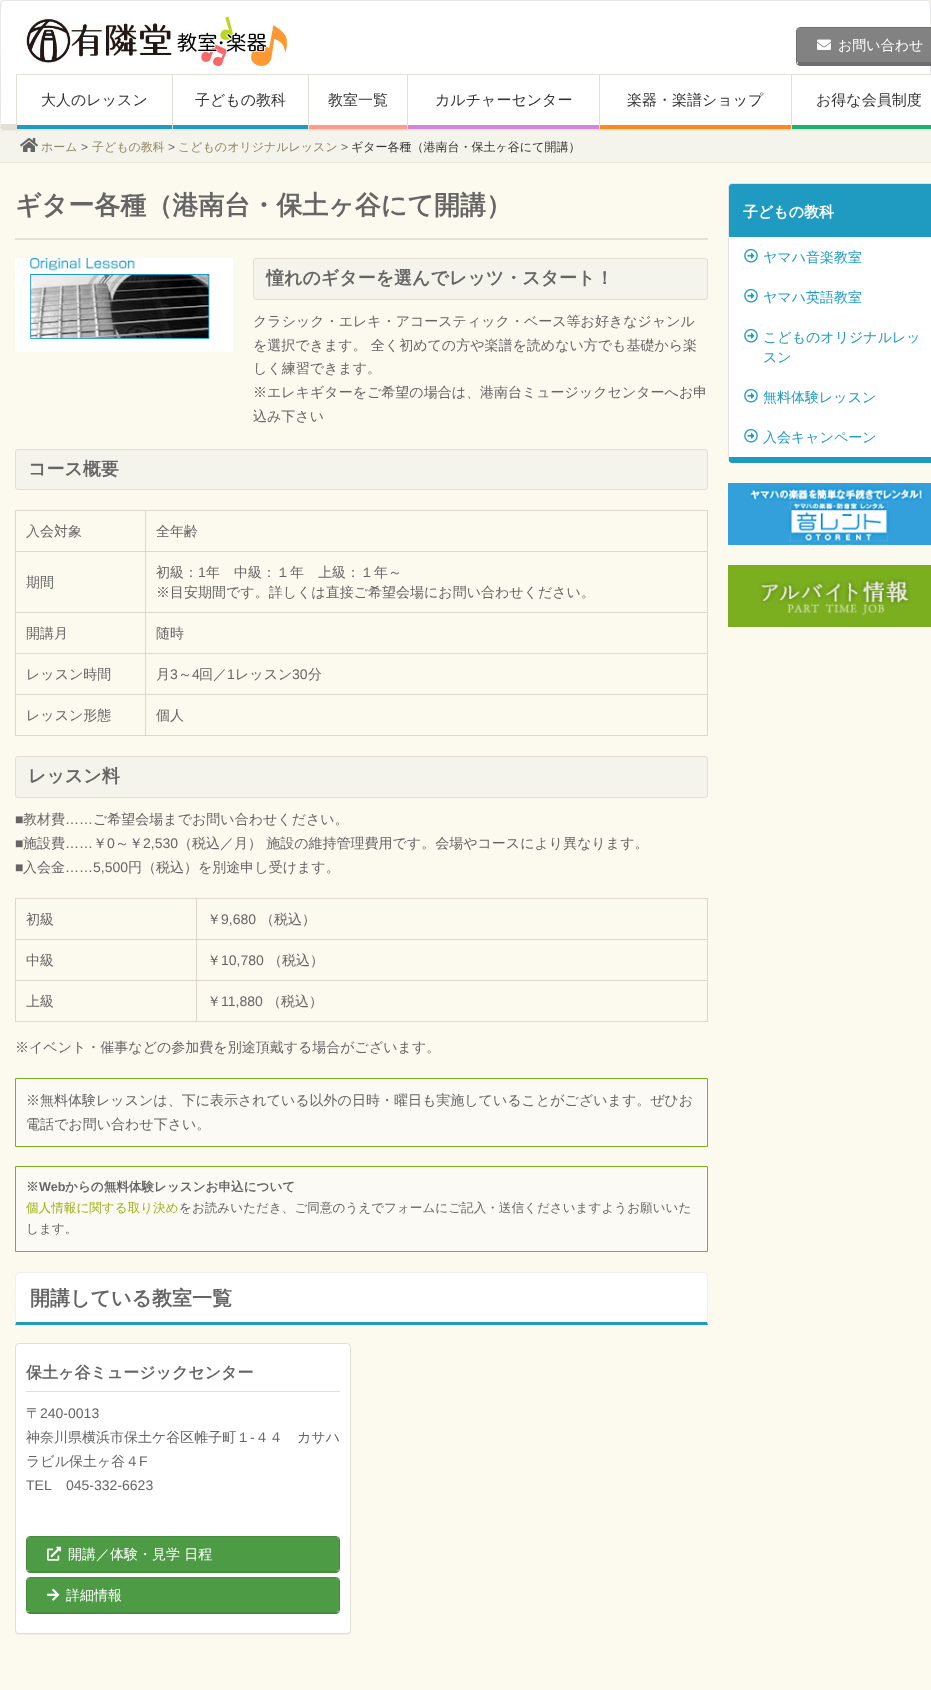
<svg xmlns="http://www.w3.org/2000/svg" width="931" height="1690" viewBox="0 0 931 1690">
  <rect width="100%" height="100%" fill="#fcfaef"/>
  <path d="M4 1H927C929 1 930 2 930 4V124H1V4C1 2 2 1 4 1Z" fill="#fff"/>
  <path d="M4 0L1 1L2 2L4 1H927L929 2L930 1L927 0Z" fill="#e7e7e7"/>
  <path d="M931 126V4L930 1L929 2C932 5 928 112 931 128Z" fill="#e7e7e7"/>
  <path d="M4 130H928L931 128L930 124H1L0 128C1 129 3 130 4 130Z" fill="#e2dfd4"/>
  <path d="M0 4V126V128C3 112-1 5 2 2L1 1Z" fill="#e7e7e7"/>
  <image x="26" y="16" width="261" height="50" href="img/1.png"/>
  <path d="M800 28H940C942 28 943 29 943 31V62H797V31C797 29 798 28 800 28Z" fill="#828282"/>
  <rect x="796.5" y="27.5" width="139" height="38" rx="3.5" fill="none" stroke="#6f6f6f"/>
  <path d="M798 62h133v3H798z" fill="#6f6f6f"/>
  <image x="817" y="39" width="14" height="11" href="img/2.png"/>
  <path d="M928 129h3v1H928z" fill="#e2dfd4"/>
  <path d="M17 124h155v1H17z" fill="#fff"/>
  <path d="M16 74h915v1H16z" fill="#e2dfd4"/>
  <path d="M172 74h1v55H172z" fill="#e2dfd4"/>
  <path d="M16 74h1v55H16z" fill="#e2dfd4"/>
  <path d="M17 125h155v4H17z" fill="#1f9bc1"/>
  <path d="M173 124h135v1H173z" fill="#fff"/>
  <path d="M308 74h1v55H308z" fill="#e2dfd4"/>
  <path d="M173 125h135v4H173z" fill="#1f9bc1"/>
  <path d="M309 124h98v1H309z" fill="#fff"/>
  <path d="M407 74h1v55H407z" fill="#e2dfd4"/>
  <path d="M309 125h98v4H309z" fill="#ff9a8e"/>
  <path d="M408 124h191v1H408z" fill="#fff"/>
  <path d="M599 74h1v55H599z" fill="#e2dfd4"/>
  <path d="M408 125h191v4H408z" fill="#d286d9"/>
  <path d="M600 124h191v1H600z" fill="#fff"/>
  <path d="M791 74h1v55H791z" fill="#e2dfd4"/>
  <path d="M600 125h191v4H600z" fill="#ff891f"/>
  <path d="M792 75h139v50H792z" fill="#fff"/>
  <path d="M792 125h139v4H792z" fill="#1bb170"/>
  <path d="M0 131h931v31H0z" fill="#f5f4ec"/>
  <path d="M0 130h931v1H0z" fill="#eceadb"/>
  <path d="M0 162h931v1H0z" fill="#eceadb"/>
  <image x="20" y="138" width="18" height="14" href="img/3.png"/>
  <path d="M15 238h693v2H15z" fill="#e2dfd4"/>
  <image x="15" y="258" width="218" height="94" href="img/4.png"/>
  <rect x="253.5" y="258.5" width="454" height="41" rx="2.5" fill="#f5f4ec" stroke="#e2dfd4"/>
  <rect x="15.5" y="449.5" width="692" height="40" rx="2.5" fill="#f5f4ec" stroke="#e2dfd4"/>
  <path d="M145 510h563v1H145z" fill="#dfd7cf"/>
  <path d="M145 551h563v1H145z" fill="#dfd7cf"/>
  <path d="M145 612h563v1H145z" fill="#dfd7cf"/>
  <path d="M145 653h563v1H145z" fill="#dfd7cf"/>
  <path d="M145 694h563v1H145z" fill="#dfd7cf"/>
  <path d="M707 694h1v42H707z" fill="#dfd7cf"/>
  <path d="M145 735h563v1H145z" fill="#dfd7cf"/>
  <path d="M145 694h1v42H145z" fill="#dfd7cf"/>
  <path d="M15 694h131v1H15z" fill="#dfd7cf"/>
  <path d="M145 653h1v42H145z" fill="#dfd7cf"/>
  <path d="M15 653h131v1H15z" fill="#dfd7cf"/>
  <path d="M145 612h1v42H145z" fill="#dfd7cf"/>
  <path d="M15 612h131v1H15z" fill="#dfd7cf"/>
  <path d="M145 551h1v62H145z" fill="#dfd7cf"/>
  <path d="M15 551h131v1H15z" fill="#dfd7cf"/>
  <path d="M145 510h1v42H145z" fill="#dfd7cf"/>
  <path d="M15 510h131v1H15z" fill="#dfd7cf"/>
  <path d="M15 735h131v1H15z" fill="#dfd7cf"/>
  <path d="M15 694h1v42H15z" fill="#dfd7cf"/>
  <path d="M15 653h1v42H15z" fill="#dfd7cf"/>
  <path d="M15 612h1v42H15z" fill="#dfd7cf"/>
  <path d="M15 551h1v62H15z" fill="#dfd7cf"/>
  <path d="M15 510h1v42H15z" fill="#dfd7cf"/>
  <path d="M707 653h1v42H707z" fill="#dfd7cf"/>
  <path d="M707 612h1v42H707z" fill="#dfd7cf"/>
  <path d="M707 551h1v62H707z" fill="#dfd7cf"/>
  <path d="M707 510h1v42H707z" fill="#dfd7cf"/>
  <rect x="15.5" y="756.5" width="692" height="41" rx="2.5" fill="#f5f4ec" stroke="#e2dfd4"/>
  <path d="M196 898h512v1H196z" fill="#dfd7cf"/>
  <path d="M196 939h512v1H196z" fill="#dfd7cf"/>
  <path d="M196 980h512v1H196z" fill="#dfd7cf"/>
  <path d="M707 980h1v42H707z" fill="#dfd7cf"/>
  <path d="M196 1021h512v1H196z" fill="#dfd7cf"/>
  <path d="M196 980h1v42H196z" fill="#dfd7cf"/>
  <path d="M15 980h182v1H15z" fill="#dfd7cf"/>
  <path d="M196 939h1v42H196z" fill="#dfd7cf"/>
  <path d="M15 939h182v1H15z" fill="#dfd7cf"/>
  <path d="M196 898h1v42H196z" fill="#dfd7cf"/>
  <path d="M15 898h182v1H15z" fill="#dfd7cf"/>
  <path d="M15 1021h182v1H15z" fill="#dfd7cf"/>
  <path d="M15 980h1v42H15z" fill="#dfd7cf"/>
  <path d="M15 939h1v42H15z" fill="#dfd7cf"/>
  <path d="M15 898h1v42H15z" fill="#dfd7cf"/>
  <path d="M707 939h1v42H707z" fill="#dfd7cf"/>
  <path d="M707 898h1v42H707z" fill="#dfd7cf"/>
  <path d="M15.5 1078.5h692v68H15.5z" fill="#fbfaf4" stroke="#7baf1f"/>
  <path d="M15.5 1166.5h692v85H15.5z" fill="#fbfaf4" stroke="#7baf1f"/>
  <path d="M18 1273H705C706 1273 707 1274 707 1275V1322H16V1275C16 1274 17 1273 18 1273Z" fill="#fff"/>
  <path d="M18 1272L16 1273L17 1274L18 1273H705L706 1274L707 1273L705 1272Z" fill="#efefef"/>
  <path d="M708 1325C708 1319 709 1275 707 1273L706 1274C708 1275 707 1316 707 1322Z" fill="#efefef"/>
  <path d="M708 1325L707 1322H16L15 1325Z" fill="#1f9bc1"/>
  <path d="M15 1325L16 1322C16 1316 15 1275 17 1274L16 1273L15 1275Z" fill="#efefef"/>
  <rect x="15" y="1344" width="336" height="291" rx="4" fill="#0000000d" filter="blur(0.5px)"/>
  <rect x="15.5" y="1343.5" width="335" height="290" rx="3.5" fill="#fff" stroke="#e2dfd4"/>
  <path d="M26 1391h314v1H26z" fill="#e2dfd4"/>
  <path d="M30 1537H336C338 1537 339 1538 339 1540V1569C339 1570 338 1571 336 1571H30C28 1571 27 1570 27 1569V1540C27 1538 28 1537 30 1537Z" fill="#4e9b45"/>
  <rect x="26.5" y="1536.5" width="313" height="36" rx="3.5" fill="none" stroke="#468c3e"/>
  <path d="M28 1571h310v1H28z" fill="#468c3e"/>
  <image x="47" y="1546" width="14" height="15" href="img/5.png"/>
  <path d="M30 1578H336C338 1578 339 1579 339 1581V1610C339 1611 338 1612 336 1612H30C28 1612 27 1611 27 1610V1581C27 1579 28 1578 30 1578Z" fill="#4e9b45"/>
  <rect x="26.5" y="1577.5" width="313" height="36" rx="3.5" fill="none" stroke="#468c3e"/>
  <path d="M28 1612h310v1H28z" fill="#468c3e"/>
  <image x="47" y="1588" width="13" height="13" href="img/6.png"/>
  <path d="M732 184H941C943 184 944 185 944 187V459H729V187C729 185 730 184 732 184Z" fill="#1f9bc1"/>
  <path d="M732 183L729 184L730 185L732 184H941L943 185L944 184L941 183Z" fill="#e3e3e3"/>
  <path d="M732 463H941C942 463 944 462 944 461V459H729V461C729 462 731 463 732 463Z" fill="#1f9bc1"/>
  <path d="M728 187V459L729 461V459V187L730 185L729 184Z" fill="#e3e3e3"/>
  <path d="M732 184H931V236H729V187C729 185.5 730.5 184 732 184Z" fill="#1f9bc1"/>
  <path d="M729 237h202v220H729z" fill="#fff"/>
  <image x="744" y="249" width="14" height="14" href="img/7.png"/>
  <image x="744" y="289" width="14" height="14" href="img/7.png"/>
  <image x="744" y="329" width="14" height="14" href="img/7.png"/>
  <image x="744" y="389" width="14" height="14" href="img/7.png"/>
  <image x="744" y="429" width="14" height="14" href="img/7.png"/>
  <image x="728" y="483" width="203" height="62" href="img/8.png"/>
  <image x="728" y="565" width="203" height="62" href="img/9.png"/>
  <text x="838" y="50" font-family="WenQuanYi Zen Hei" font-size="14" font-weight="500" fill="#fff">お問い合わせ</text>
  <g font-family="WenQuanYi Zen Hei" font-size="15" font-weight="500" fill="#333">
    <text x="41" y="105">大人のレッスン</text>
    <text x="195" y="105">子どもの教科</text>
    <text x="328" y="105">教室一覧</text>
    <text x="435" y="105">カルチャーセンター</text>
    <text x="627" y="105">楽器・楽譜ショップ</text>
    <text x="816" y="105">お得な会員制度</text>
  </g>
  <text x="41" y="151" font-family="WenQuanYi Zen Hei" font-size="12" font-weight="500" fill="#928763">ホーム</text>
  <text x="81" y="151" font-family="Liberation Sans" font-size="12" fill="#656565">&gt;</text>
  <text x="92" y="151" font-family="WenQuanYi Zen Hei" font-size="12" font-weight="500" fill="#928763">子どもの教科</text>
  <text x="168" y="151" font-family="Liberation Sans" font-size="12" fill="#656565">&gt;</text>
  <text x="178" y="151" font-family="WenQuanYi Zen Hei" font-size="12" font-weight="500" fill="#928763">こどものオリジナルレッスン</text>
  <text x="341" y="151" font-family="Liberation Sans" font-size="12" fill="#656565">&gt;</text>
  <text x="351" y="151" font-family="WenQuanYi Zen Hei" font-size="12" font-weight="500" fill="#333">ギター各種（港南台・保土ヶ谷にて開講）</text>
  <text x="15" y="214" font-family="WenQuanYi Zen Hei" font-size="26" font-weight="bold" fill="#656565">ギター各種（港南台・保土ヶ谷にて開講）</text>
  <text x="266" y="284" font-family="WenQuanYi Zen Hei" font-size="18" font-weight="bold" fill="#656565">憧れのギターを選んでレッツ・スタート！</text>
  <g font-family="WenQuanYi Zen Hei" font-size="14" font-weight="500" fill="#656565">
    <text x="253" y="326">クラシック・エレキ・アコースティック・ベース等お好きなジャンル</text>
    <text x="253" y="350">を選択できます。 全く初めての方や楽譜を読めない方でも基礎から楽</text>
    <text x="253" y="373">しく練習できます。</text>
    <text x="253" y="397">※エレキギターをご希望の場合は、港南台ミュージックセンターへお申</text>
    <text x="253" y="421">込み下さい</text>
  </g>
  <text x="28" y="475" font-family="WenQuanYi Zen Hei" font-size="18" font-weight="bold" fill="#656565">コース概要</text>
  <g font-family="WenQuanYi Zen Hei" font-size="14" font-weight="500" fill="#656565">
    <text x="26" y="536">入会対象</text>
    <text x="156" y="536">全年齢</text>
    <text x="26" y="587">期間</text>
    <text x="156" y="577">初級：</text>
  </g>
  <text x="198" y="577" font-family="Liberation Sans" font-size="14" fill="#656565">1</text>
  <g font-family="WenQuanYi Zen Hei" font-size="14" font-weight="500" fill="#656565">
    <text x="206" y="577">年　中級：１年　上級：１年～</text>
    <text x="156" y="597">※目安期間です。詳しくは直接ご希望会場にお問い合わせください。</text>
    <text x="26" y="638">開講月</text>
    <text x="156" y="638">随時</text>
    <text x="26" y="679">レッスン時間</text>
    <text x="156" y="679">月</text>
  </g>
  <text x="170" y="679" font-family="Liberation Sans" font-size="14" fill="#656565">3</text>
  <text x="178" y="679" font-family="WenQuanYi Zen Hei" font-size="14" font-weight="500" fill="#656565">～</text>
  <text x="192" y="679" font-family="Liberation Sans" font-size="14" fill="#656565">4</text>
  <text x="199" y="679" font-family="WenQuanYi Zen Hei" font-size="14" font-weight="500" fill="#656565">回／</text>
  <text x="227" y="679" font-family="Liberation Sans" font-size="14" fill="#656565">1</text>
  <text x="235" y="679" font-family="WenQuanYi Zen Hei" font-size="14" font-weight="500" fill="#656565">レッスン</text>
  <text x="292" y="679" font-family="Liberation Sans" font-size="14" fill="#656565">30</text>
  <g font-family="WenQuanYi Zen Hei" font-size="14" font-weight="500" fill="#656565">
    <text x="308" y="679">分</text>
    <text x="26" y="720">レッスン形態</text>
    <text x="156" y="720">個人</text>
  </g>
  <text x="28" y="782" font-family="WenQuanYi Zen Hei" font-size="18" font-weight="bold" fill="#656565">レッスン料</text>
  <text x="15" y="824" font-family="Liberation Sans" font-size="14" fill="#656565">■</text>
  <text x="23" y="824" font-family="WenQuanYi Zen Hei" font-size="14" font-weight="500" fill="#656565">教材費</text>
  <text x="65" y="824" font-family="Liberation Sans" font-size="14" fill="#656565">……</text>
  <text x="93" y="824" font-family="WenQuanYi Zen Hei" font-size="14" font-weight="500" fill="#656565">ご希望会場までお問い合わせください。</text>
  <text x="15" y="848" font-family="Liberation Sans" font-size="14" fill="#656565">■</text>
  <text x="23" y="848" font-family="WenQuanYi Zen Hei" font-size="14" font-weight="500" fill="#656565">施設費</text>
  <text x="65" y="848" font-family="Liberation Sans" font-size="14" fill="#656565">……</text>
  <text x="93" y="848" font-family="WenQuanYi Zen Hei" font-size="14" font-weight="500" fill="#656565">￥</text>
  <text x="107" y="848" font-family="Liberation Sans" font-size="14" fill="#656565">0</text>
  <text x="115" y="848" font-family="WenQuanYi Zen Hei" font-size="14" font-weight="500" fill="#656565">～￥</text>
  <text x="143" y="848" font-family="Liberation Sans" font-size="14" fill="#656565">2,530</text>
  <text x="178" y="848" font-family="WenQuanYi Zen Hei" font-size="14" font-weight="500" fill="#656565">（税込／月） 施設の維持管理費用です。会場やコースにより異なります。</text>
  <text x="15" y="872" font-family="Liberation Sans" font-size="14" fill="#656565">■</text>
  <text x="23" y="872" font-family="WenQuanYi Zen Hei" font-size="14" font-weight="500" fill="#656565">入会金</text>
  <text x="65" y="872" font-family="Liberation Sans" font-size="14" fill="#656565">……5,500</text>
  <g font-family="WenQuanYi Zen Hei" font-size="14" font-weight="500" fill="#656565">
    <text x="128" y="872">円（税込）を別途申し受けます。</text>
    <text x="26" y="924">初級</text>
    <text x="207" y="924">￥</text>
  </g>
  <text x="221" y="924" font-family="Liberation Sans" font-size="14" fill="#656565">9,680</text>
  <g font-family="WenQuanYi Zen Hei" font-size="14" font-weight="500" fill="#656565">
    <text x="260" y="924">（税込）</text>
    <text x="26" y="965">中級</text>
    <text x="207" y="965">￥</text>
  </g>
  <text x="221" y="965" font-family="Liberation Sans" font-size="14" fill="#656565">10,780</text>
  <g font-family="WenQuanYi Zen Hei" font-size="14" font-weight="500" fill="#656565">
    <text x="268" y="965">（税込）</text>
    <text x="26" y="1006">上級</text>
    <text x="207" y="1006">￥</text>
  </g>
  <text x="221" y="1006" font-family="Liberation Sans" font-size="14" fill="#656565">11,880</text>
  <g font-family="WenQuanYi Zen Hei" font-size="14" font-weight="500" fill="#656565">
    <text x="267" y="1006">（税込）</text>
    <text x="15" y="1052">※イベント・催事などの参加費を別途頂戴する場合がございます。</text>
    <text x="26" y="1105">※無料体験レッスンは、下に表示されている以外の日時・曜日も実施していることがございます。ぜひお</text>
    <text x="26" y="1129">電話でお問い合わせ下さい。</text>
  </g>
  <text x="26" y="1191" font-family="WenQuanYi Zen Hei" font-size="12.6" font-weight="bold" fill="#656565">※</text>
  <text x="39" y="1191" font-family="Liberation Sans" font-size="12.6" font-weight="bold" fill="#656565">Web</text>
  <text x="65" y="1191" font-family="WenQuanYi Zen Hei" font-size="12.6" font-weight="bold" fill="#656565">からの無料体験レッスンお申込について</text>
  <text x="26" y="1212" font-family="WenQuanYi Zen Hei" font-size="12.6" font-weight="500" fill="#9db217">個人情報に関する取り決め</text>
  <g font-family="WenQuanYi Zen Hei" font-size="12.6" font-weight="500" fill="#656565">
    <text x="179" y="1212">をお読みいただき、ご同意のうえでフォームにご記入・送信くださいますようお願いいた</text>
    <text x="26" y="1233">します。</text>
  </g>
  <text x="30" y="1305" font-family="WenQuanYi Zen Hei" font-size="20" font-weight="bold" fill="#656565">開講している教室一覧</text>
  <text x="26" y="1378" font-family="WenQuanYi Zen Hei" font-size="16" font-weight="bold" fill="#656565">保土ヶ谷ミュージックセンター</text>
  <text x="26" y="1418" font-family="WenQuanYi Zen Hei" font-size="14" font-weight="500" fill="#656565">〒</text>
  <text x="40" y="1418" font-family="Liberation Sans" font-size="14" fill="#656565">240-0013</text>
  <text x="26" y="1442" font-family="WenQuanYi Zen Hei" font-size="14" font-weight="500" fill="#656565">神奈川県横浜市保土ケ谷区帷子町１</text>
  <text x="250" y="1442" font-family="Liberation Sans" font-size="14" fill="#656565">-</text>
  <g font-family="WenQuanYi Zen Hei" font-size="14" font-weight="500" fill="#656565">
    <text x="255" y="1442">４４　カサハ</text>
    <text x="26" y="1466">ラビル保土ヶ谷４</text>
  </g>
  <g font-family="Liberation Sans" font-size="14" fill="#656565">
    <text x="139" y="1466">F</text>
    <text x="26" y="1490">TEL</text>
    <text x="66" y="1490">045-332-6623</text>
  </g>
  <g font-family="WenQuanYi Zen Hei" font-size="14" font-weight="500" fill="#fff">
    <text x="68" y="1559">開講／体験・見学 日程</text>
    <text x="66" y="1600">詳細情報</text>
  </g>
  <text x="743" y="217" font-family="WenQuanYi Zen Hei" font-size="15" font-weight="bold" fill="#fff">子どもの教科</text>
  <g font-family="WenQuanYi Zen Hei" font-size="14" font-weight="500" fill="#1f9bc1">
    <text x="763" y="262">ヤマハ音楽教室</text>
    <text x="763" y="302">ヤマハ英語教室</text>
    <text x="763" y="342">こどものオリジナルレッ</text>
    <text x="763" y="362">スン</text>
    <text x="763" y="402">無料体験レッスン</text>
    <text x="763" y="442">入会キャンペーン</text>
  </g>
</svg>
